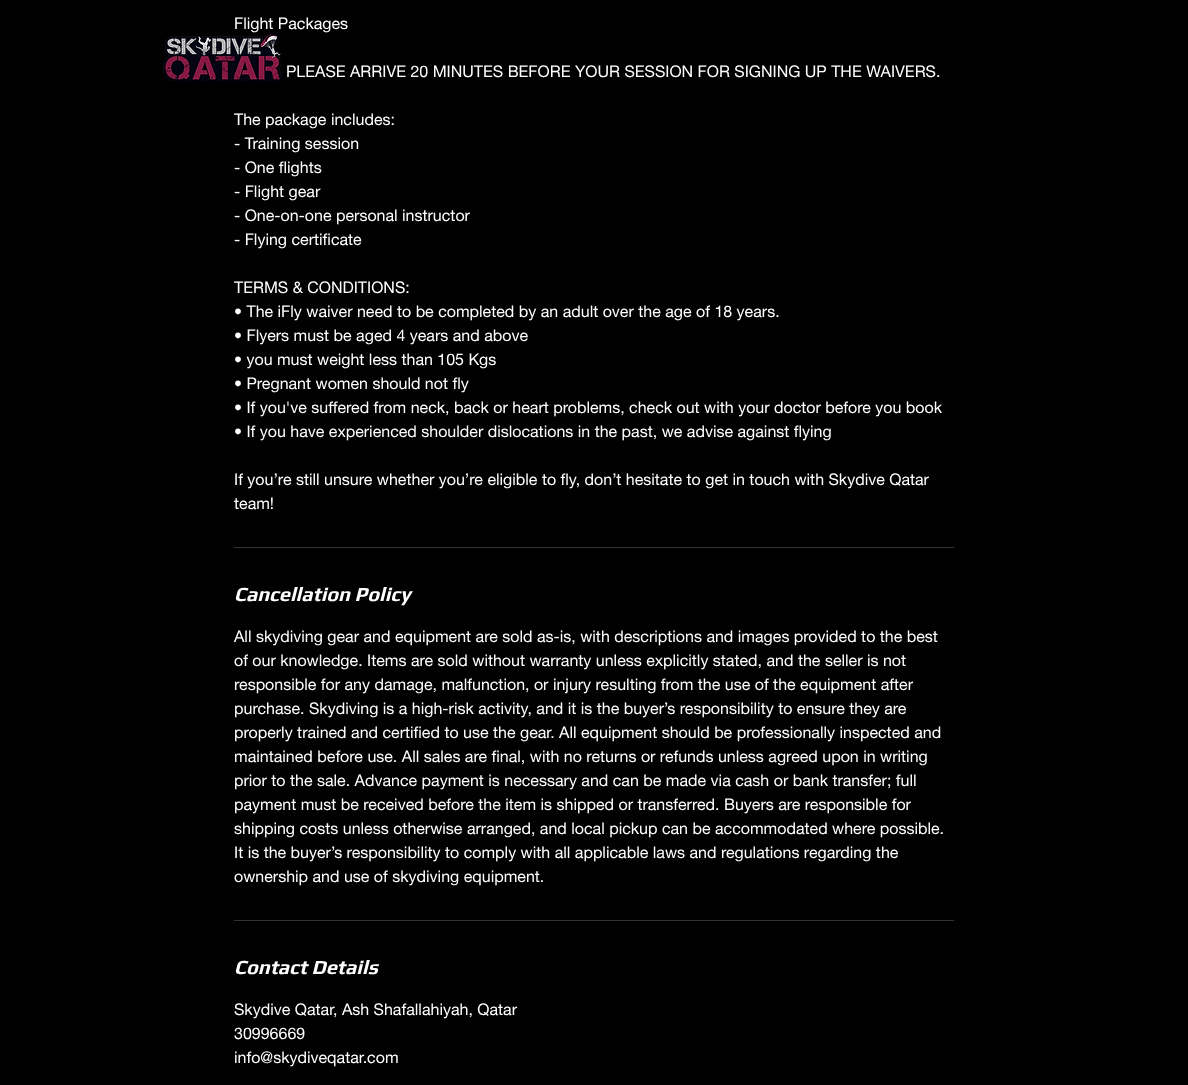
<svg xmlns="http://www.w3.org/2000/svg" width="1188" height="1085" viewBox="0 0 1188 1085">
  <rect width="100%" height="100%" fill="#000"/>
  <image x="163" y="34" width="120" height="47" href="img/1.png"/>
  <path d="M234 547h720v1H234z" fill="#333"/>
  <path d="M234 920h720v1H234z" fill="#333"/>
  <g font-family="helvetica neue" font-size="16" fill="#fff">
    <text x="234" y="29">Flight Packages</text>
    <text x="286" y="77">PLEASE ARRIVE 20 MINUTES BEFORE YOUR SESSION FOR SIGNING UP THE WAIVERS.</text>
    <text x="234" y="125">The package includes:</text>
    <text x="234" y="149">- Training session</text>
    <text x="234" y="173">- One flights</text>
    <text x="234" y="197">- Flight gear</text>
    <text x="234" y="221">- One-on-one personal instructor</text>
    <text x="234" y="245">- Flying certificate</text>
    <text x="234" y="293">TERMS &amp; CONDITIONS:</text>
    <text x="234" y="317">• The iFly waiver need to be completed by an adult over the age of 18 years.</text>
    <text x="234" y="341">• Flyers must be aged 4 years and above</text>
    <text x="234" y="365">• you must weight less than 105 Kgs</text>
    <text x="234" y="389">• Pregnant women should not fly</text>
    <text x="234" y="413">• If you've suffered from neck, back or heart problems, check out with your doctor before you book</text>
    <text x="234" y="437">• If you have experienced shoulder dislocations in the past, we advise against flying</text>
    <text x="234" y="485">If you’re still unsure whether you’re eligible to fly, don’t hesitate to get in touch with Skydive Qatar</text>
    <text x="234" y="509">team!</text>
  </g>
  <text x="234" y="601" font-family="Play" font-size="20" font-weight="bold" font-style="italic" fill="#fff">Cancellation Policy</text>
  <g font-family="helvetica neue" font-size="16" fill="#fff">
    <text x="234" y="642">All skydiving gear and equipment are sold as-is, with descriptions and images provided to the best</text>
    <text x="234" y="666">of our knowledge. Items are sold without warranty unless explicitly stated, and the seller is not</text>
    <text x="234" y="690">responsible for any damage, malfunction, or injury resulting from the use of the equipment after</text>
    <text x="234" y="714">purchase. Skydiving is a high-risk activity, and it is the buyer’s responsibility to ensure they are</text>
    <text x="234" y="738">properly trained and certified to use the gear. All equipment should be professionally inspected and</text>
    <text x="234" y="762">maintained before use. All sales are final, with no returns or refunds unless agreed upon in writing</text>
    <text x="234" y="786">prior to the sale. Advance payment is necessary and can be made via cash or bank transfer; full</text>
    <text x="234" y="810">payment must be received before the item is shipped or transferred. Buyers are responsible for</text>
    <text x="234" y="834">shipping costs unless otherwise arranged, and local pickup can be accommodated where possible.</text>
    <text x="234" y="858">It is the buyer’s responsibility to comply with all applicable laws and regulations regarding the</text>
    <text x="234" y="882">ownership and use of skydiving equipment.</text>
  </g>
  <text x="234" y="974" font-family="Play" font-size="20" font-weight="bold" font-style="italic" fill="#fff">Contact Details</text>
  <g font-family="helvetica neue" font-size="16" fill="#fff">
    <text x="234" y="1015">Skydive Qatar, Ash Shafallahiyah, Qatar</text>
    <text x="234" y="1039">30996669</text>
    <text x="234" y="1063">info@skydiveqatar.com</text>
  </g>
</svg>
